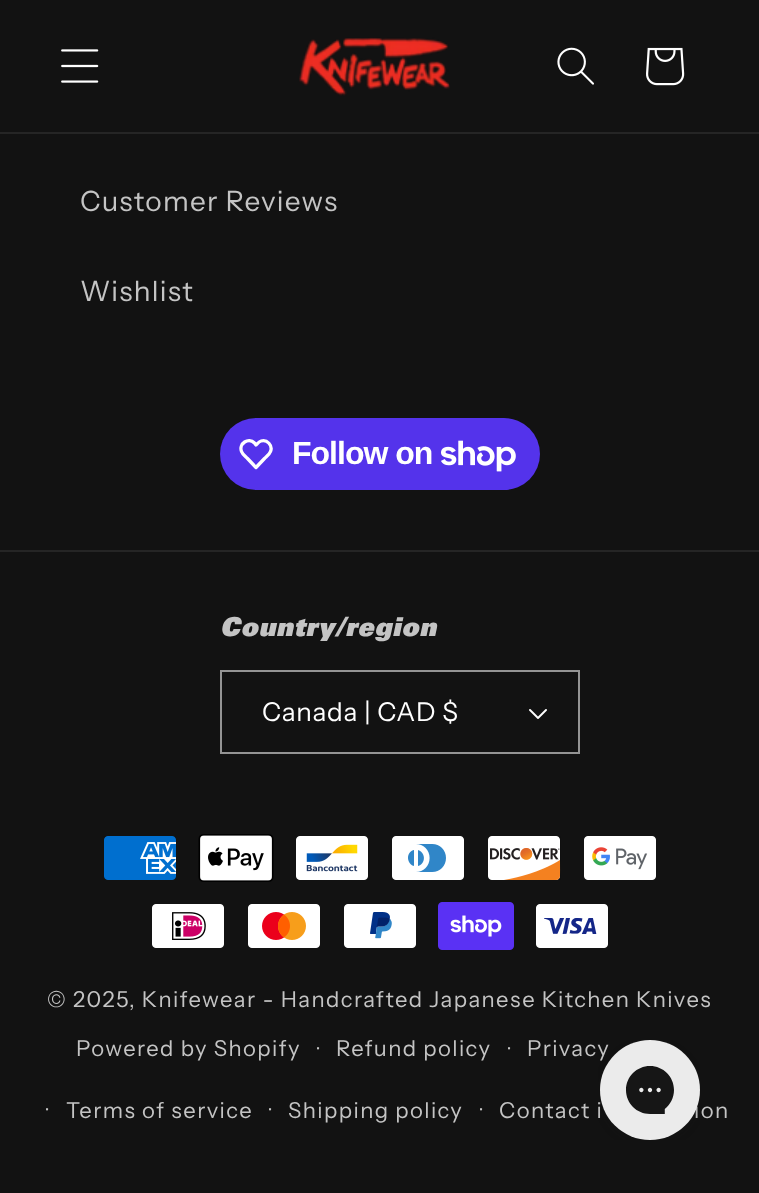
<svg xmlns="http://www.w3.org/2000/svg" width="759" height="1193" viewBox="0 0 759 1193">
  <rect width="100%" height="100%" fill="#121212"/>
  <path d="M0 132h759v2H0z" fill="#252525"/>
  <image x="61" y="49" width="38" height="34" href="img/1.png"/>
  <image x="299" y="37" width="151" height="59" href="img/2.png"/>
  <image x="557" y="47" width="37" height="38" href="img/3.png"/>
  <image x="646" y="47" width="39" height="39" href="img/4.png"/>
  <rect x="220" y="418" width="320" height="72" rx="36" fill="#5433eb"/>
  <path d="M254.5 443L256 445C257.5 443.5 259 441.5 261 441C267 439 273 445.5 270.5 451.5C269.5 454.5 266.5 456.5 264.5 458.5L256 467.5L247.5 458.5C245.5 456.5 242.5 454.5 241.5 451.5C238.5 443.5 248.5 437 254.5 443Z" fill="none" stroke="#fff" stroke-width="3.3" stroke-linejoin="round"/>
  <image x="441" y="440" width="75" height="32" href="img/5.png"/>
  <path d="M0 550h759v2H0z" fill="#252525"/>
  <image x="529" y="709" width="18" height="10" href="img/6.png"/>
  <path d="M221 671h358v82H221z" fill="none" stroke="#949494" stroke-width="2"/>
  <image x="104" y="836" width="72" height="44" href="img/7.png"/>
  <image x="198" y="834" width="76" height="48" href="img/8.png"/>
  <image x="296" y="836" width="72" height="44" href="img/9.png"/>
  <image x="392" y="836" width="72" height="44" href="img/10.png"/>
  <image x="488" y="836" width="73" height="44" href="img/11.png"/>
  <image x="584" y="836" width="72" height="44" href="img/12.png"/>
  <image x="152" y="904" width="72" height="44" href="img/13.png"/>
  <image x="248" y="904" width="72" height="44" href="img/14.png"/>
  <image x="344" y="904" width="72" height="44" href="img/15.png"/>
  <image x="438" y="902" width="76" height="48" href="img/16.png"/>
  <image x="536" y="904" width="72" height="44" href="img/17.png"/>
  <g font-family="Instrument Sans" font-size="28" letter-spacing="1.25" fill="#c4c4c4">
    <text x="80" y="211">Customer Reviews</text>
    <text x="80" y="301">Wishlist</text>
  </g>
  <text x="292" y="464" font-family="Liberation Sans" font-size="32" font-weight="bold" letter-spacing="-1" fill="#fff">Follow on</text>
  <text x="220" y="636" font-family="Univers" font-size="26" font-weight="900" font-style="italic" letter-spacing="0.75" fill="#c4c4c4">Country/region</text>
  <text x="262" y="721" font-family="Instrument Sans" font-size="26" letter-spacing="0.75" fill="#fff">Canada | CAD $</text>
  <text x="47" y="1007" font-family="Instrument Sans" font-size="22" letter-spacing="1.4" fill="#c4c4c4">© 2025, Knifewear - Handcrafted Japanese Kitchen Knives</text>
  <text x="317" y="1056" font-family="Instrument Sans" font-size="20" letter-spacing="1.4" fill="#c4c4c4">·</text>
  <text x="336" y="1056" font-family="Instrument Sans" font-size="22" letter-spacing="1.4" fill="#c4c4c4">Refund policy</text>
  <text x="508" y="1056" font-family="Instrument Sans" font-size="20" letter-spacing="1.4" fill="#c4c4c4">·</text>
  <text x="527" y="1056" font-family="Instrument Sans" font-size="22" letter-spacing="1.4" fill="#c4c4c4">Privacy</text>
  <text x="46" y="1117" font-family="Instrument Sans" font-size="20" letter-spacing="1.4" fill="#c4c4c4">·</text>
  <text x="66" y="1118" font-family="Instrument Sans" font-size="22" letter-spacing="1.4" fill="#c4c4c4">Terms of service</text>
  <text x="269" y="1117" font-family="Instrument Sans" font-size="20" letter-spacing="1.4" fill="#c4c4c4">·</text>
  <text x="288" y="1118" font-family="Instrument Sans" font-size="22" letter-spacing="1.4" fill="#c4c4c4">Shipping policy</text>
  <text x="480" y="1117" font-family="Instrument Sans" font-size="20" letter-spacing="1.4" fill="#c4c4c4">·</text>
  <g font-family="Instrument Sans" font-size="22" letter-spacing="1.4" fill="#c4c4c4">
    <text x="499" y="1118">Contact i</text>
    <text x="694" y="1118">ion</text>
    <text x="76" y="1056">Powered by Shopify</text>
  </g>
  <image x="598" y="1040" width="102" height="100" href="img/18.png"/>
</svg>
